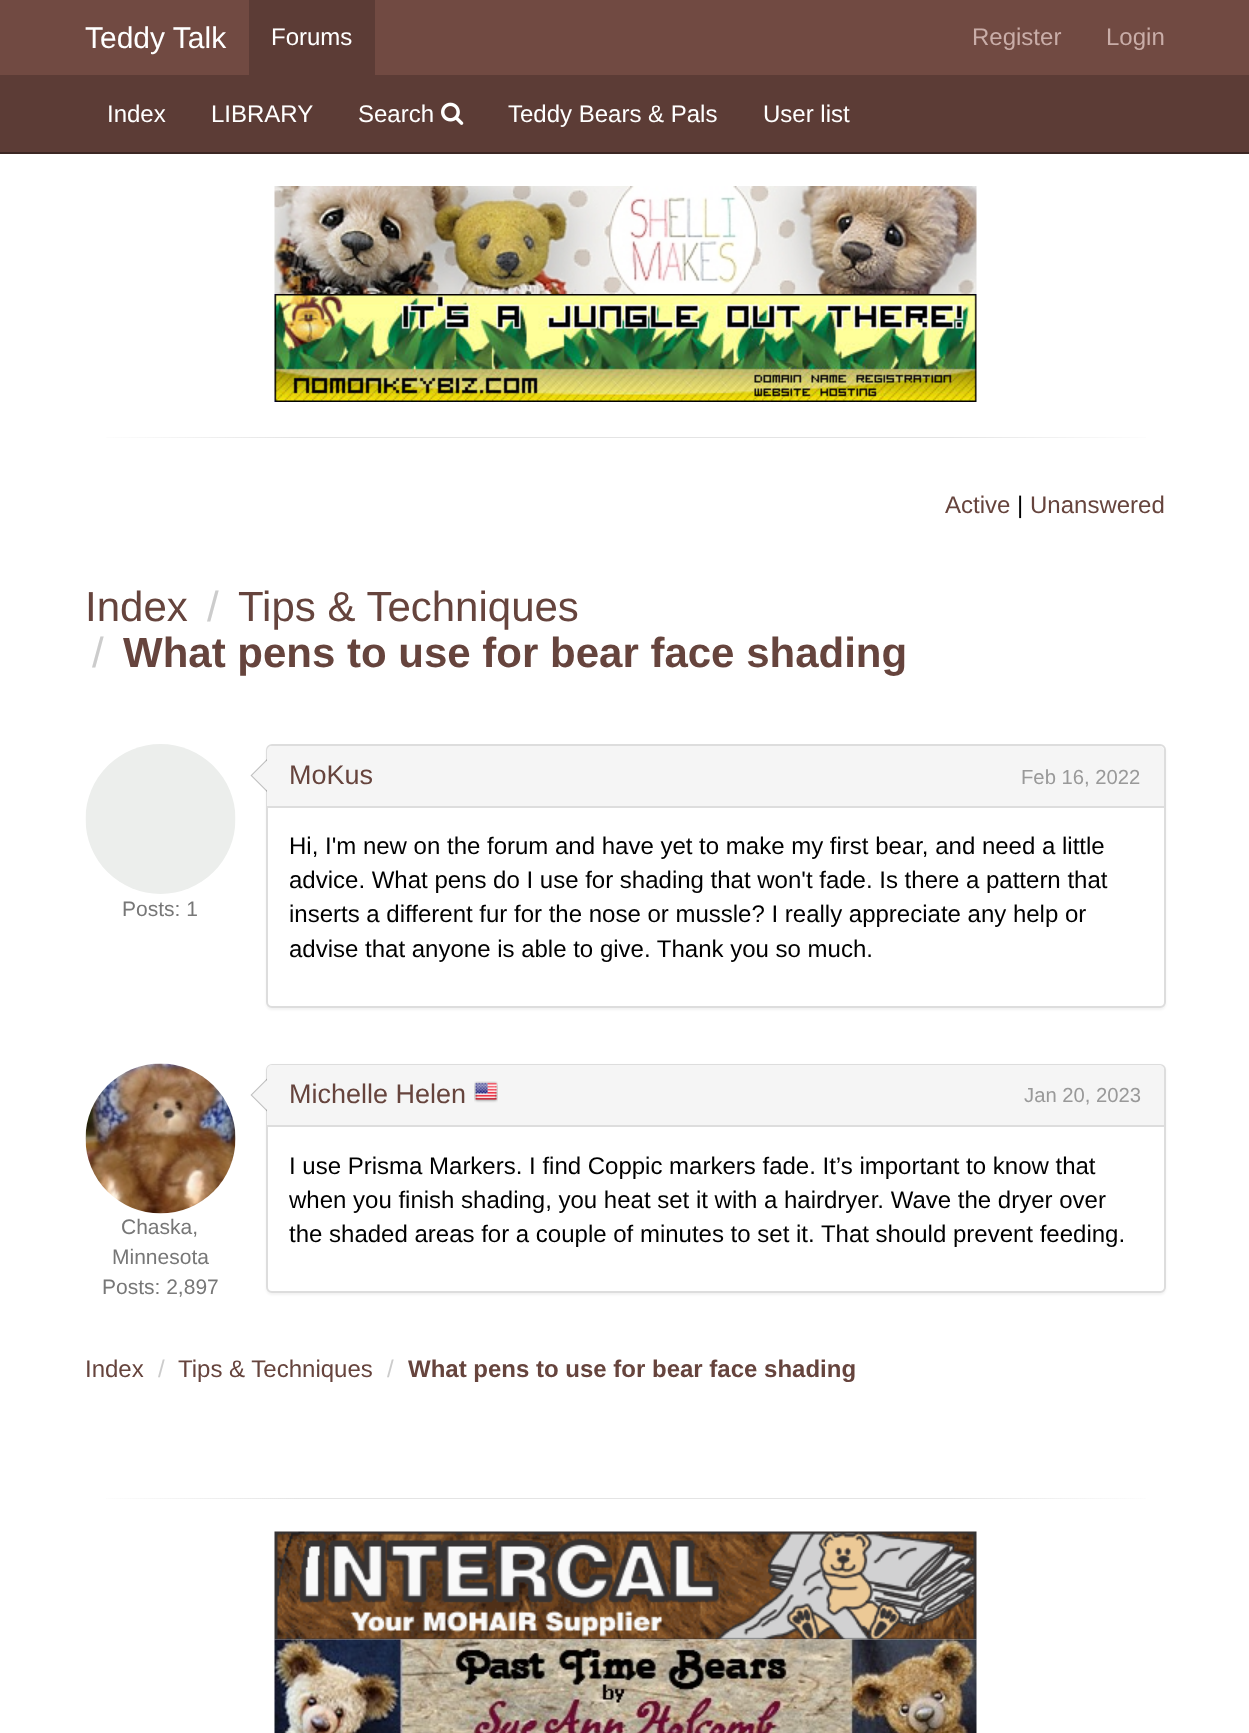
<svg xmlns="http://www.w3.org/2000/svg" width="1249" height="1733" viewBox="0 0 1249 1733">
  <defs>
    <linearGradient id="g1" gradientUnits="userSpaceOnUse" x1="86" y1="437" x2="1166" y2="437"><stop offset="0" stop-color="#fff"/><stop offset="0.2" stop-color="#e4e4e4"/><stop offset="0.8" stop-color="#e4e4e4"/><stop offset="1" stop-color="#fff"/></linearGradient>
    <linearGradient id="g2" gradientUnits="userSpaceOnUse" x1="86" y1="1498" x2="1166" y2="1498"><stop offset="0" stop-color="#fff"/><stop offset="0.2" stop-color="#e4e4e4"/><stop offset="0.8" stop-color="#e4e4e4"/><stop offset="1" stop-color="#fff"/></linearGradient>
  </defs>
  <rect width="100%" height="100%" fill="#fff"/>
  <path d="M0 0h1249v75H0z" fill="#714a42"/>
  <path d="M249 0h126v75H249z" fill="#5c3c36"/>
  <path d="M0 75h1249v77H0z" fill="#5c3c36"/>
  <path d="M0 152h1249v2H0z" fill="#3c2723"/>
  <image x="441" y="102" width="23" height="23" href="img/1.png"/>
  <image x="274" y="186" width="703" height="108" href="img/2.png"/>
  <image x="274" y="294" width="703" height="108" href="img/3.png"/>
  <path d="M106 437h1040v1H106z" fill="url(#g1)"/>
  <image x="85" y="744" width="151" height="150" href="img/4.png"/>
  <rect x="266" y="746" width="900" height="264" rx="6" fill="#0000000d" filter="blur(1px)"/>
  <rect x="267" y="745" width="898" height="262" rx="5" fill="#fff" stroke="#ddd" stroke-width="2"/>
  <path d="M267 759V792L250.5 775.5Z" fill="#00000040"/>
  <path d="M267 760.5V790.5L252 775.5Z" fill="#f5f5f5"/>
  <path d="M272 746H1159C1162 746 1164 748 1164 751V807H267V751C267 748 269 746 272 746Z" fill="#f5f5f5"/>
  <path d="M267 806h897v2H267z" fill="#ddd"/>
  <rect x="266" y="1065" width="900" height="230" rx="6" fill="#0000000d" filter="blur(1px)"/>
  <rect x="267" y="1065" width="898" height="227" rx="5" fill="#fff" stroke="#ddd" stroke-width="2"/>
  <path d="M267 1078.5V1111.5L250.5 1095Z" fill="#00000040"/>
  <path d="M267 1080V1110L252 1095Z" fill="#f5f5f5"/>
  <path d="M272 1065H1159C1162 1065 1164 1067 1164 1070V1127H267V1070C267 1067 269 1065 272 1065Z" fill="#f5f5f5"/>
  <path d="M267 1125h897v2H267z" fill="#ddd"/>
  <image x="474" y="1081" width="24" height="22" href="img/5.png"/>
  <image x="85" y="1063" width="151" height="151" href="img/6.png"/>
  <path d="M106 1498h1040v1H106z" fill="url(#g2)"/>
  <image x="274" y="1531" width="703" height="109" href="img/7.png"/>
  <image x="274" y="1639" width="703" height="94" href="img/8.png"/>
  <text x="85" y="48" font-family="Liberation Sans" font-size="30" fill="#fff">Teddy Talk</text>
  <text x="271" y="45" font-family="Liberation Sans" font-size="24" fill="#fff">Forums</text>
  <g font-family="Liberation Sans" font-size="24" fill="#c9ada8">
    <text x="972" y="45">Register</text>
    <text x="1106" y="45">Login</text>
  </g>
  <g font-family="Liberation Sans" font-size="24" fill="#fff">
    <text x="107" y="122">Index</text>
    <text x="211" y="122">LIBRARY</text>
    <text x="358" y="122">Search</text>
    <text x="508" y="122">Teddy Bears &amp; Pals</text>
    <text x="763" y="122">User list</text>
  </g>
  <text x="945" y="513" font-family="Liberation Sans" font-size="24" fill="#66443d">Active</text>
  <text x="1017" y="513" font-family="Liberation Sans" font-size="24" fill="#000">|</text>
  <text x="1030" y="513" font-family="Liberation Sans" font-size="24" fill="#66443d">Unanswered</text>
  <text x="85" y="621" font-family="Liberation Sans" font-size="42" fill="#66443d">Index</text>
  <text x="207" y="621" font-family="Liberation Sans" font-size="42" fill="#ccc">/</text>
  <text x="238" y="621" font-family="Liberation Sans" font-size="42" fill="#66443d">Tips &amp; Techniques</text>
  <text x="92" y="667" font-family="Liberation Sans" font-size="42" fill="#ccc">/</text>
  <text x="123" y="667" font-family="Liberation Sans" font-size="42" font-weight="bold" fill="#66443d">What pens to use for bear face shading</text>
  <text x="122" y="916" font-family="Liberation Sans" font-size="21" fill="#777">Posts: 1</text>
  <text x="289" y="784" font-family="Liberation Sans" font-size="27" fill="#66443d">MoKus</text>
  <text x="1021" y="784" font-family="Liberation Sans" font-size="20.25" fill="#999">Feb 16, 2022</text>
  <g font-family="Liberation Sans" font-size="24" fill="#000">
    <text x="289" y="854">Hi, I'm new on the forum and have yet to make my first bear, and need a little</text>
    <text x="289" y="888">advice. What pens do I use for shading that won't fade. Is there a pattern that</text>
    <text x="289" y="922">inserts a different fur for the nose or mussle? I really appreciate any help or</text>
    <text x="289" y="957">advise that anyone is able to give. Thank you so much.</text>
  </g>
  <text x="289" y="1103" font-family="Liberation Sans" font-size="27" fill="#66443d">Michelle Helen</text>
  <text x="1024" y="1102" font-family="Liberation Sans" font-size="20.25" fill="#999">Jan 20, 2023</text>
  <g font-family="Liberation Sans" font-size="24" fill="#000">
    <text x="289" y="1174">I use Prisma Markers. I find Coppic markers fade. It’s important to know that</text>
    <text x="289" y="1208">when you finish shading, you heat set it with a hairdryer. Wave the dryer over</text>
    <text x="289" y="1242">the shaded areas for a couple of minutes to set it. That should prevent feeding.</text>
  </g>
  <g font-family="Liberation Sans" font-size="21" fill="#777">
    <text x="121" y="1234">Chaska,</text>
    <text x="112" y="1264">Minnesota</text>
    <text x="102" y="1294">Posts: 2,897</text>
  </g>
  <text x="85" y="1377" font-family="Liberation Sans" font-size="24" fill="#66443d">Index</text>
  <text x="158" y="1377" font-family="Liberation Sans" font-size="24" fill="#ccc">/</text>
  <text x="178" y="1377" font-family="Liberation Sans" font-size="24" fill="#66443d">Tips &amp; Techniques</text>
  <text x="387" y="1377" font-family="Liberation Sans" font-size="24" fill="#ccc">/</text>
  <text x="408" y="1377" font-family="Liberation Sans" font-size="24" font-weight="bold" fill="#66443d">What pens to use for bear face shading</text>
</svg>
